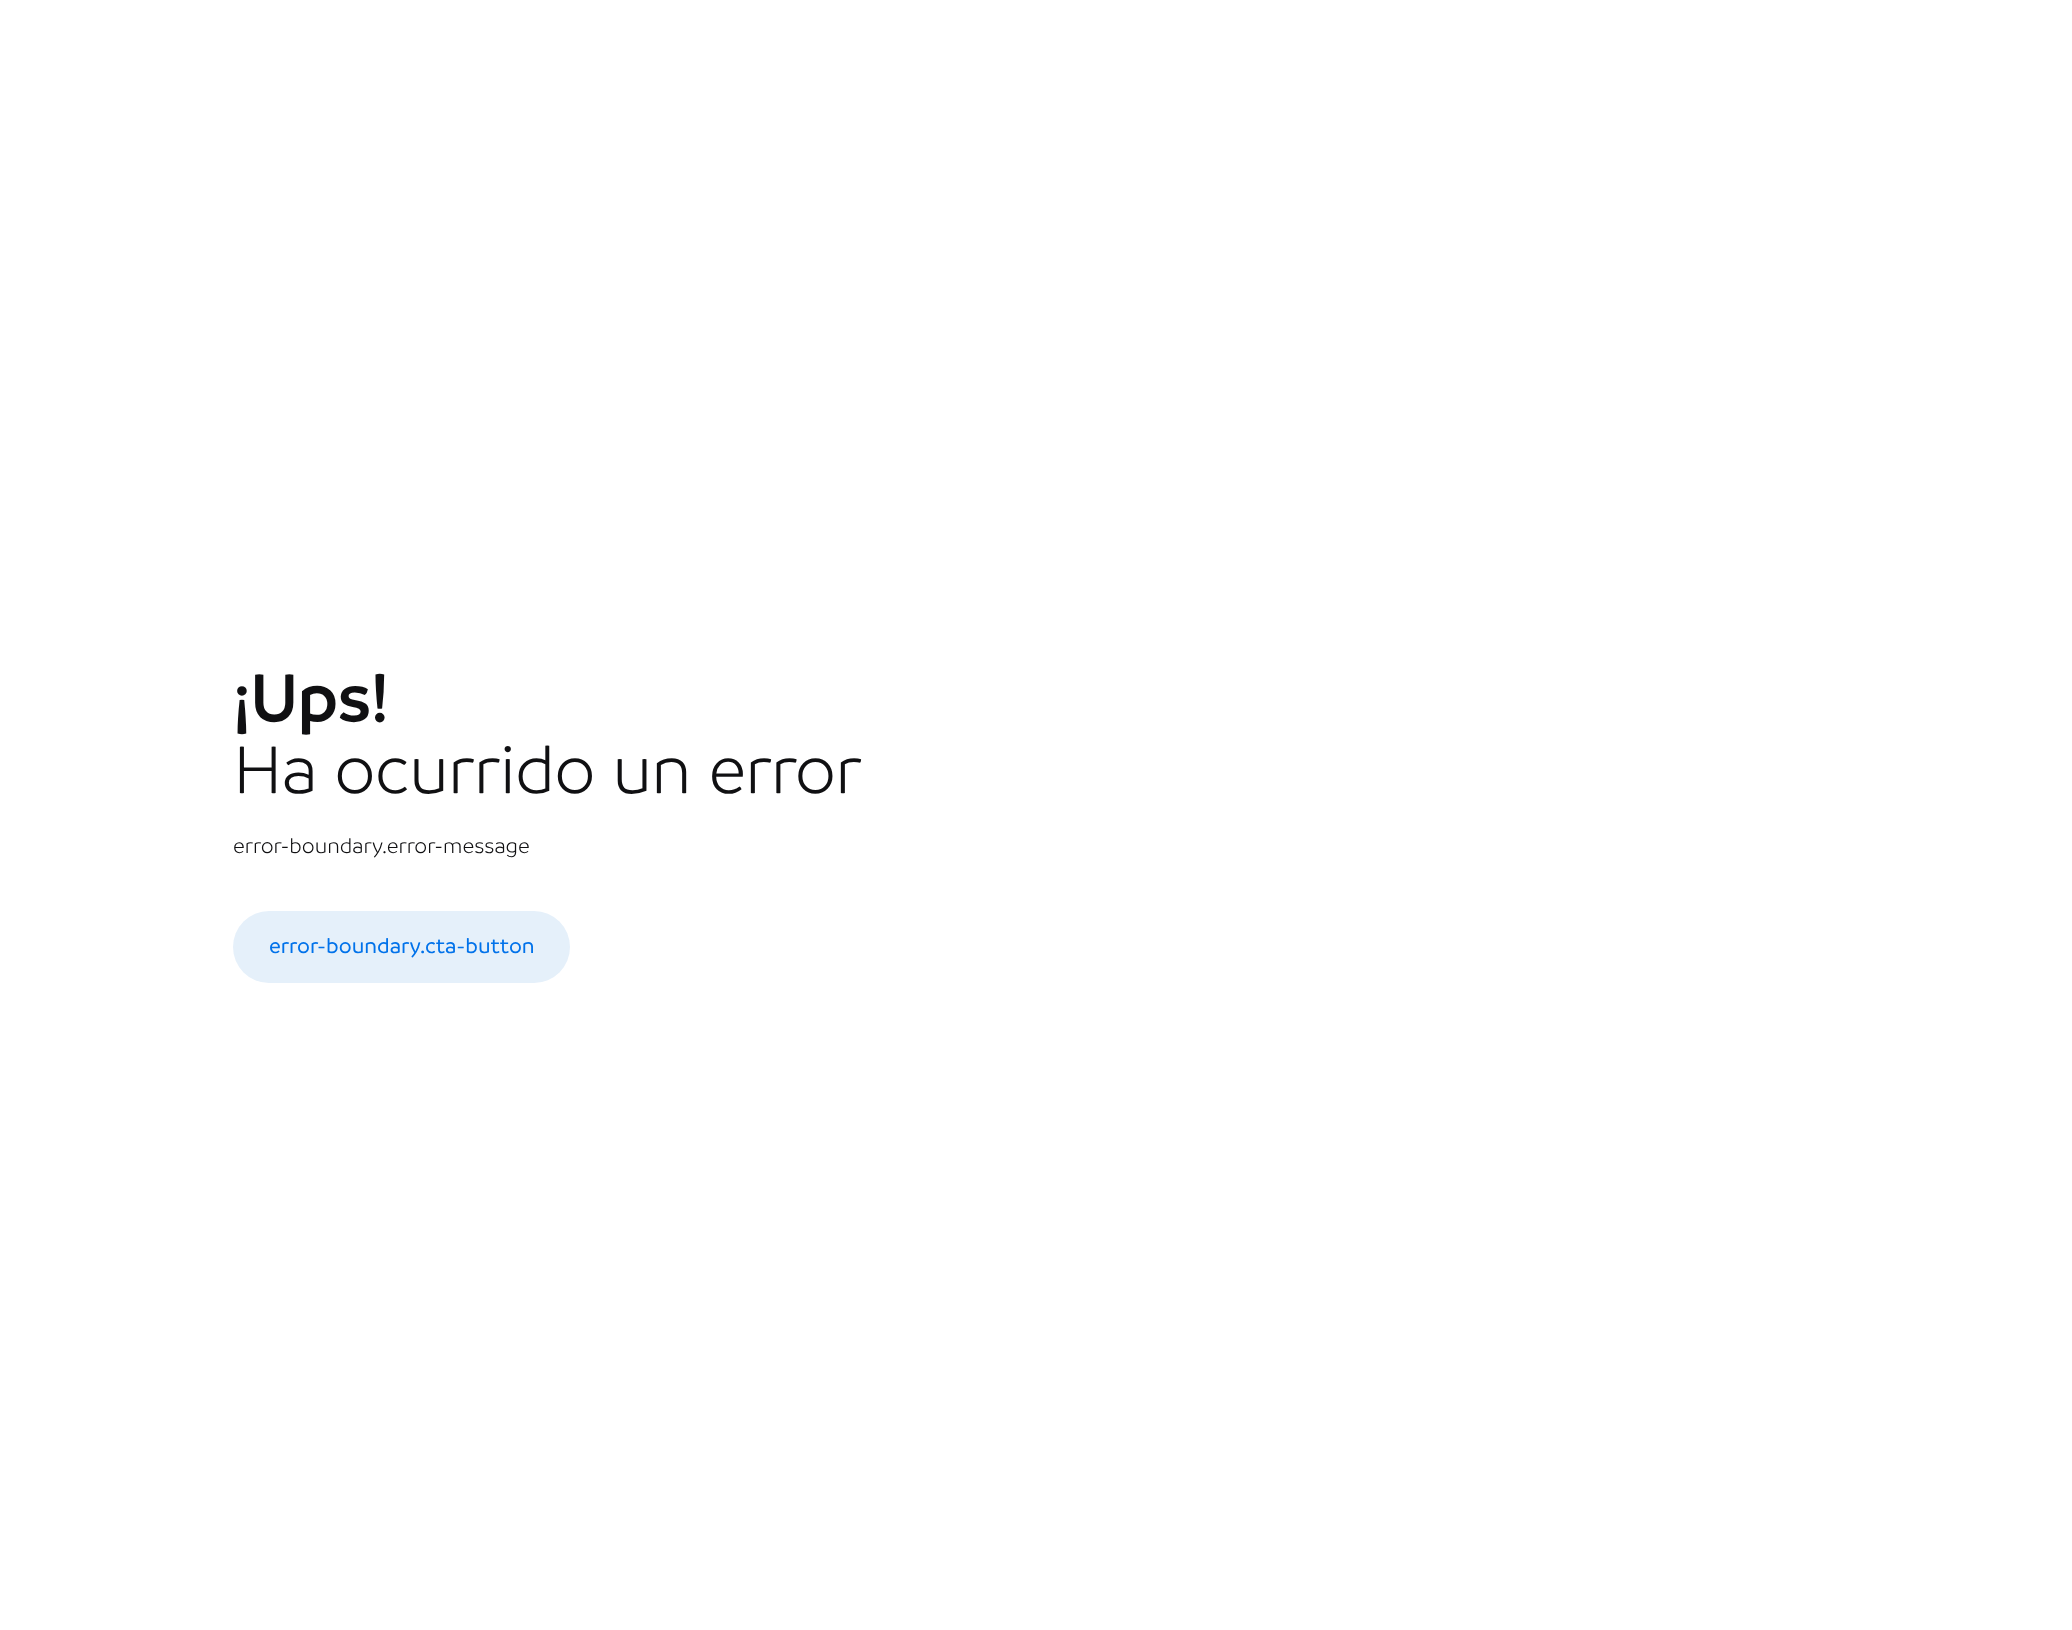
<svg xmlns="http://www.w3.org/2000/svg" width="2072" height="1630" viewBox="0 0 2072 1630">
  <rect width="100%" height="100%" fill="#fff"/>
  <rect x="233" y="911" width="337" height="72" rx="36" fill="#e5f0fa"/>
  <text x="233" y="721" font-family="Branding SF" font-size="72" font-weight="600" letter-spacing="-0.75" fill="#101012">¡Ups!</text>
  <text x="233" y="793" font-family="Branding SF" font-size="72" font-weight="300" letter-spacing="-0.75" fill="#101012">Ha ocurrido un error</text>
  <text x="233" y="853" font-family="Branding SF" font-size="22.5" font-weight="300" fill="#101012">error-boundary.error-message</text>
  <text x="269" y="953" font-family="Branding SF" font-size="22.5" font-weight="500" fill="#0172ea">error-boundary.cta-button</text>
</svg>
